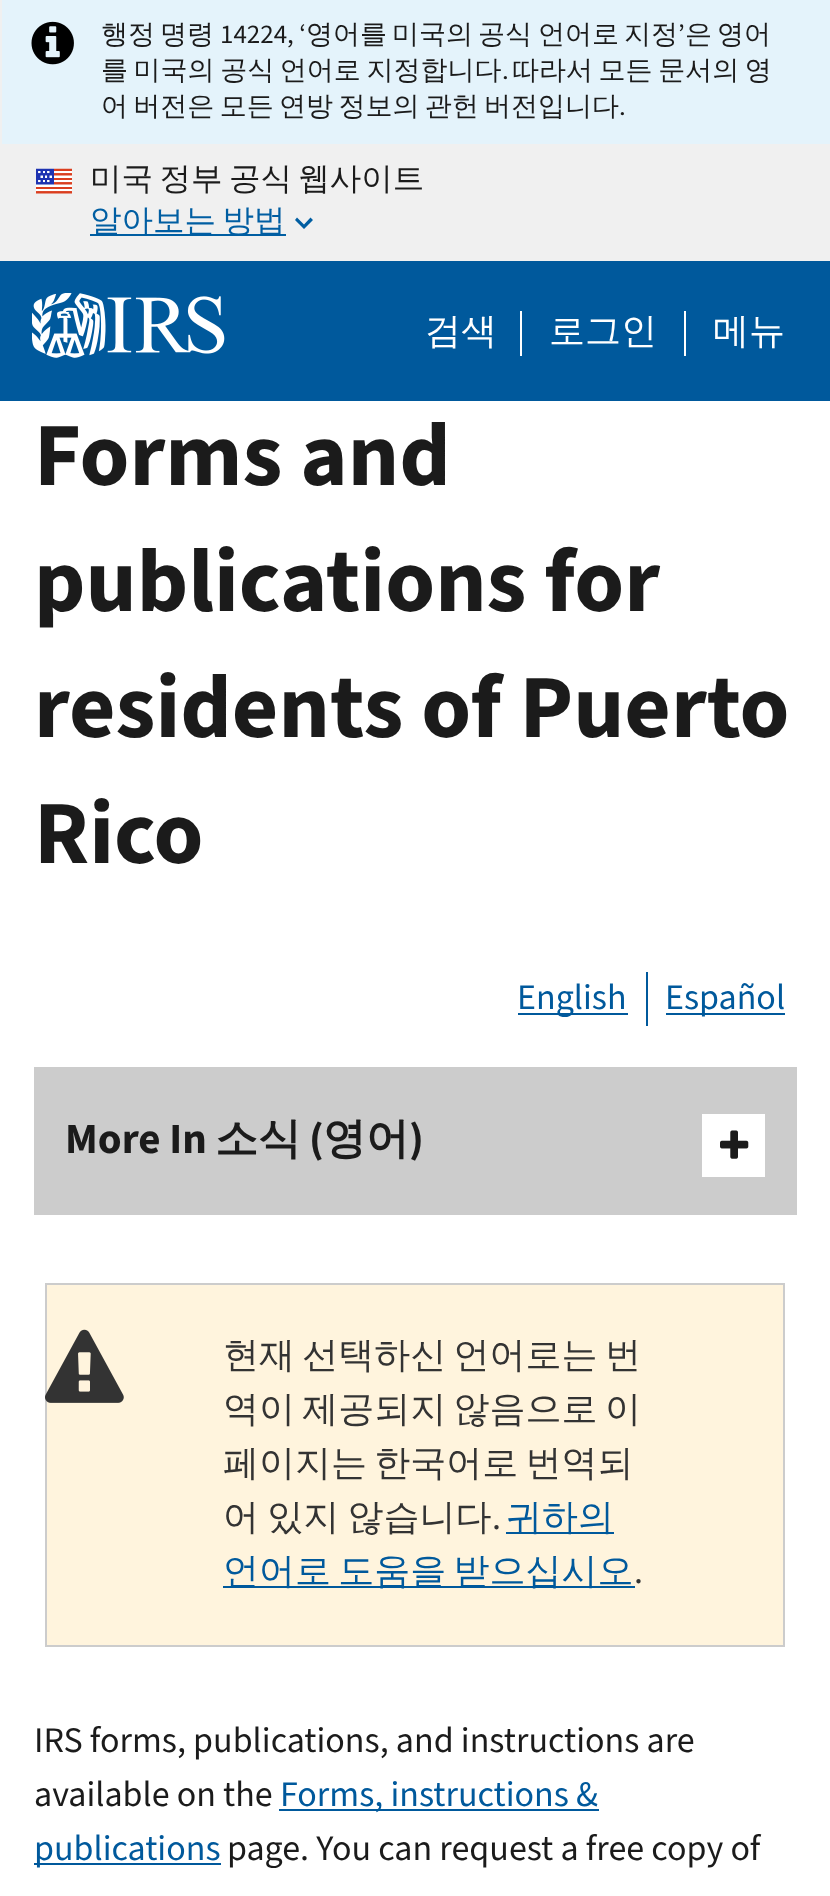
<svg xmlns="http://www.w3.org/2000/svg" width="830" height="1896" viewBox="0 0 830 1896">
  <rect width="100%" height="100%" fill="#fff"/>
  <path d="M0 0h830v261H0z" fill="#f0f0f0"/>
  <path d="M2 0h828v144H2z" fill="#e4f3fb"/>
  <image x="31" y="21" width="43" height="44" href="img/1.png"/>
  <image x="36" y="168" width="36" height="26" href="img/2.png"/>
  <path d="M90 234h196v2H90z" fill="#005ea2"/>
  <path d="M310.5 217.5L304 224.5L297 217.5L295 220L304 229L313 220Z" fill="#005ea2"/>
  <path d="M0 261h830v140H0z" fill="#00599c"/>
  <image x="32" y="293" width="193" height="65" href="img/3.png"/>
  <path d="M520 311h2v45H520z" fill="#fff"/>
  <path d="M684 311h2v45H684z" fill="#fff"/>
  <path d="M518 1013h110v2H518z" fill="#00599c"/>
  <path d="M646 972h2v54H646z" fill="#00599c"/>
  <path d="M666 1013h119v2H666z" fill="#00599c"/>
  <path d="M34 1067h763v148H34z" fill="#ccc"/>
  <path d="M702 1114h63v63H702z" fill="#fff"/>
  <image x="720" y="1130" width="29" height="29" href="img/4.png"/>
  <path d="M46 1284h738v362H46z" fill="#fff4dd" stroke="#ccc" stroke-width="2"/>
  <image x="45" y="1329" width="79" height="74" href="img/5.png"/>
  <path d="M506 1532h108v2H506z" fill="#00599c"/>
  <path d="M223 1586h412v2H223z" fill="#00599c"/>
  <path d="M279 1809h320v2H279z" fill="#00599c"/>
  <path d="M34 1863h187v2H34z" fill="#00599c"/>
  <g font-family="WenQuanYi Zen Hei" font-size="27" font-weight="500" fill="#1b1b1b">
    <text x="101" y="43">행정</text>
    <text x="160" y="43">명령</text>
  </g>
  <text x="220" y="43" font-family="'Source Sans 3'" font-size="27" fill="#1b1b1b">14224, ‘</text>
  <g font-family="WenQuanYi Zen Hei" font-size="27" font-weight="500" fill="#1b1b1b">
    <text x="306" y="43">영어를</text>
    <text x="392" y="43">미국의</text>
    <text x="478" y="43">공식</text>
    <text x="538" y="43">언어로</text>
    <text x="624" y="43">지정</text>
  </g>
  <text x="678" y="43" font-family="'Source Sans 3'" font-size="27" fill="#1b1b1b">’</text>
  <g font-family="WenQuanYi Zen Hei" font-size="27" font-weight="500" fill="#1b1b1b">
    <text x="685" y="43">은</text>
    <text x="717" y="43">영어</text>
    <text x="101" y="79" word-spacing="-2.5">를 미국의 공식 언어로 지정합니다</text>
  </g>
  <text x="502" y="79" font-family="'Source Sans 3'" font-size="27" fill="#1b1b1b">.</text>
  <g font-family="WenQuanYi Zen Hei" font-size="27" font-weight="500" fill="#1b1b1b">
    <text x="512" y="79" word-spacing="-2.5">따라서 모든 문서의 영</text>
    <text x="101" y="115" word-spacing="-2.75">어 버전은 모든 연방 정보의 관헌 버전입니다</text>
  </g>
  <text x="619" y="115" font-family="'Source Sans 3'" font-size="27" fill="#1b1b1b">.</text>
  <text x="90" y="189" word-spacing="-3" font-family="WenQuanYi Zen Hei" font-size="31.5" font-weight="500" fill="#1b1b1b">미국 정부 공식 웹사이트</text>
  <text x="90" y="231" word-spacing="-3" font-family="WenQuanYi Zen Hei" font-size="31.5" font-weight="500" fill="#005ea2">알아보는 방법</text>
  <g font-family="WenQuanYi Zen Hei" font-size="36" font-weight="500" fill="#fff">
    <text x="425" y="343">검색</text>
    <text x="549" y="343">로그인</text>
    <text x="713" y="343">메뉴</text>
  </g>
  <g font-family="'Source Sans 3'" font-size="90" font-weight="bold" fill="#1b1b1b">
    <text x="34" y="485">Forms and</text>
    <text x="34" y="611">publications for</text>
    <text x="34" y="737">residents of Puerto</text>
    <text x="34" y="863">Rico</text>
  </g>
  <g font-family="'Source Sans 3'" font-size="36" fill="#00599c">
    <text x="517" y="1009">English</text>
    <text x="665" y="1009">Español</text>
  </g>
  <text x="65" y="1153" font-family="'Source Sans 3'" font-size="43" font-weight="bold" fill="#1b1b1b">More In</text>
  <text x="215" y="1153" font-family="WenQuanYi Zen Hei" font-size="43" font-weight="bold" fill="#1b1b1b">소식</text>
  <text x="309" y="1153" font-family="'Source Sans 3'" font-size="43" font-weight="bold" fill="#1b1b1b">(</text>
  <text x="323" y="1153" font-family="WenQuanYi Zen Hei" font-size="43" font-weight="bold" fill="#1b1b1b">영어</text>
  <text x="409" y="1153" font-family="'Source Sans 3'" font-size="43" font-weight="bold" fill="#1b1b1b">)</text>
  <g font-family="WenQuanYi Zen Hei" font-size="36" font-weight="500" fill="#333">
    <text x="223" y="1367" word-spacing="-3.5">현재 선택하신 언어로는 번</text>
    <text x="223" y="1421" word-spacing="-3.5">역이 제공되지 않음으로 이</text>
    <text x="223" y="1475" word-spacing="-3.5">페이지는 한국어로 번역되</text>
    <text x="223" y="1529" word-spacing="-2.5">어 있지 않습니다</text>
  </g>
  <text x="492" y="1529" font-family="'Source Sans 3'" font-size="36" fill="#333">.</text>
  <g font-family="WenQuanYi Zen Hei" font-size="36" font-weight="500" fill="#00599c">
    <text x="506" y="1529">귀하의</text>
    <text x="223" y="1583" word-spacing="-3.5">언어로 도움을 받으십시오</text>
  </g>
  <text x="634" y="1583" font-family="'Source Sans 3'" font-size="36" fill="#333">.</text>
  <g font-family="'Source Sans 3'" font-size="36" fill="#1b1b1b">
    <text x="34" y="1752">IRS forms, publications, and instructions are</text>
    <text x="34" y="1806">available on the</text>
  </g>
  <g font-family="'Source Sans 3'" font-size="36" fill="#00599c">
    <text x="280" y="1806">Forms, instructions &amp;</text>
    <text x="34" y="1860">publications</text>
  </g>
  <text x="227" y="1860" font-family="'Source Sans 3'" font-size="36" fill="#1b1b1b">page. You can request a free copy of</text>
</svg>
